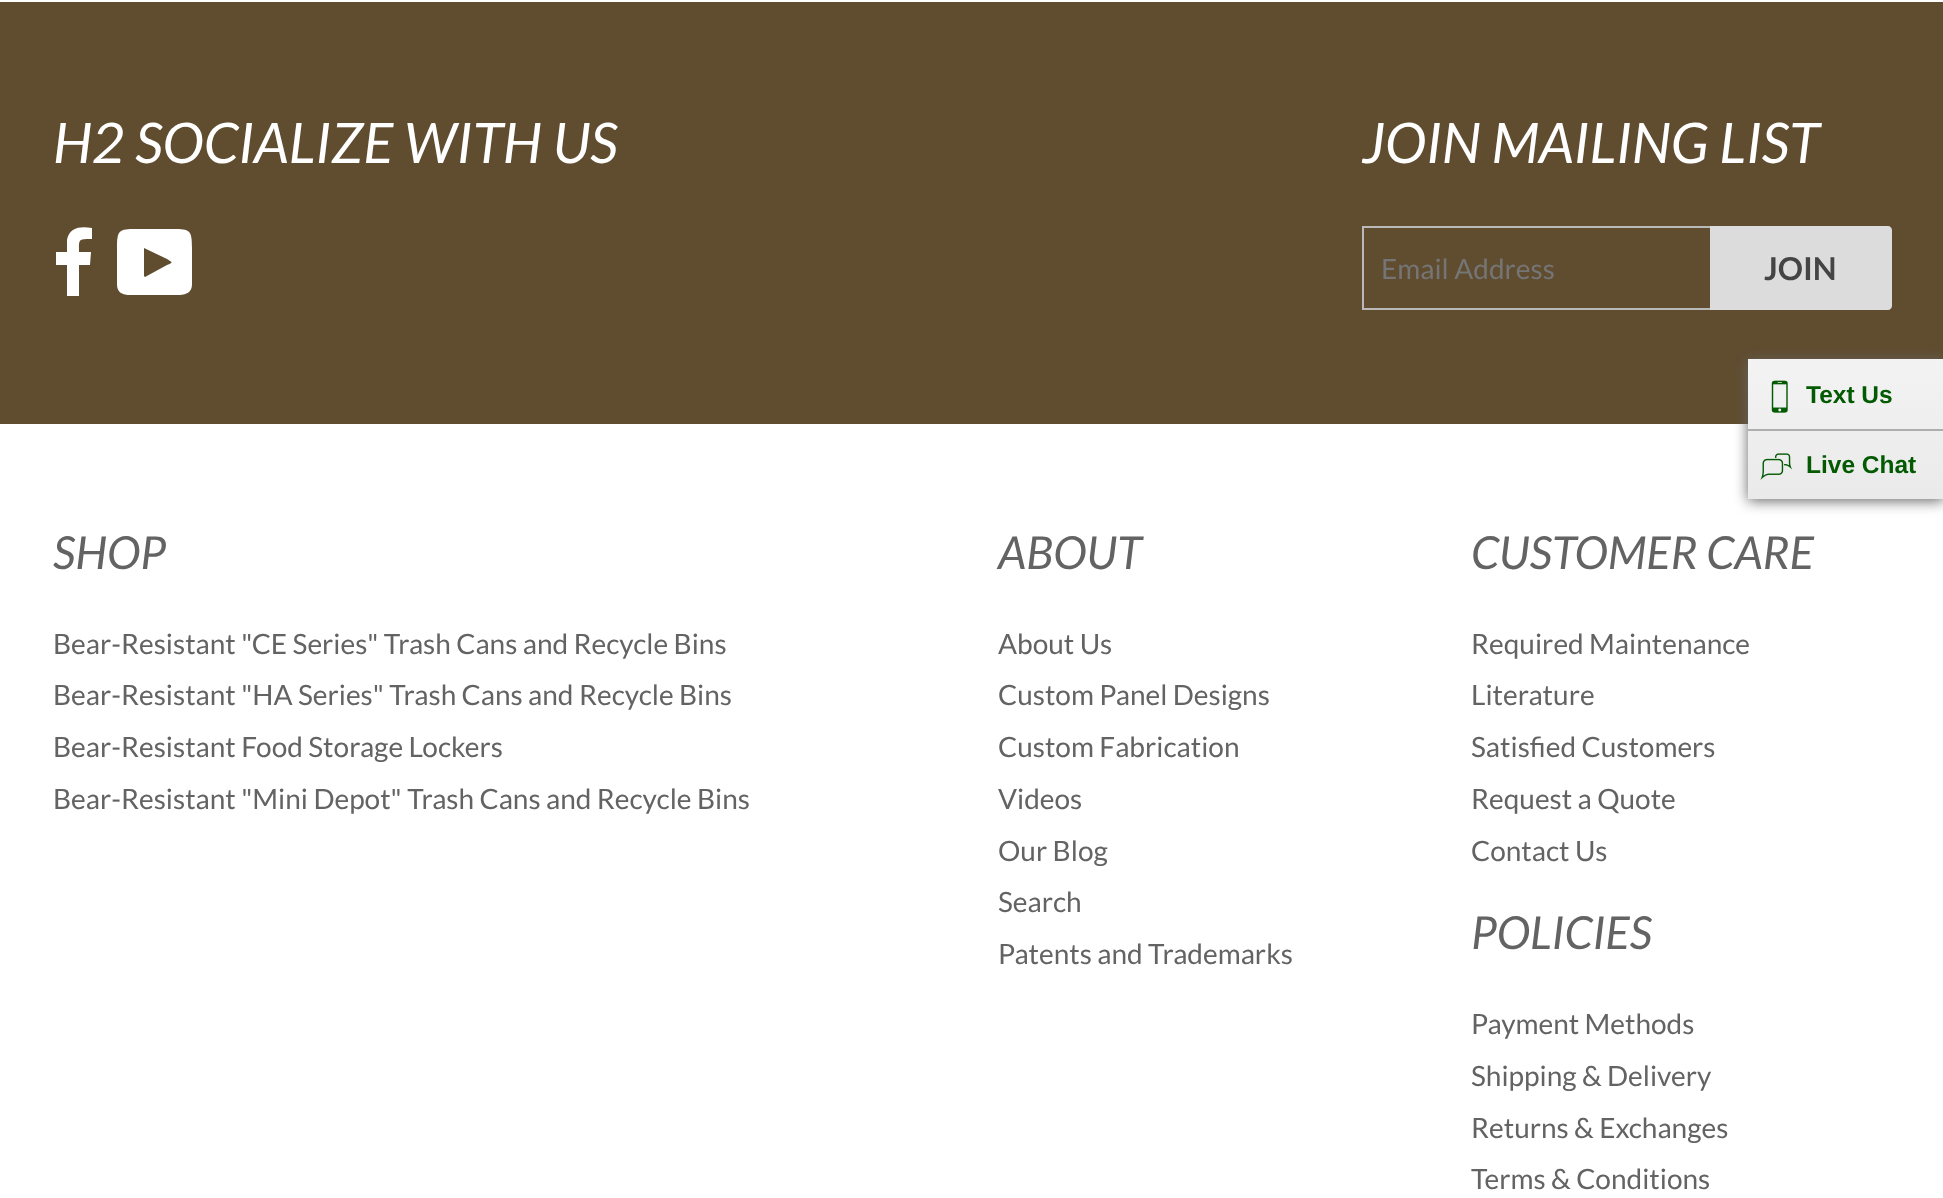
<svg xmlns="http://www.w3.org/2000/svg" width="1943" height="1198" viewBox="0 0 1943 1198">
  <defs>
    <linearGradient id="g1" gradientUnits="userSpaceOnUse" x1="1846" y1="359" x2="1846" y2="499"><stop offset="0" stop-color="#f3f3f3"/><stop offset="1" stop-color="#eaeaea"/></linearGradient>
  </defs>
  <rect width="100%" height="100%" fill="#fff"/>
  <path d="M0 2h1943v422H0z" fill="#604c2f"/>
  <path d="M92 228V239C78 239 79 239 79 252H91L90 265H79V296H67V265H56V252H67V240C69 227 81 226 92 228Z" fill="#fff"/>
  <path d="M117 284C117 296 127 295 136 295H173C181 295 192 296 192 284V248C192 230 190 229 173 229H136C119 229 117 230 117 248ZM144 276V248L167 259C173 263 173 262 167 265L145 277Z" fill="#fff"/>
  <path d="M1362 226h348v2H1362z" fill="#b9b9b9"/>
  <path d="M1362 308h348v2H1362z" fill="#b9b9b9"/>
  <path d="M1362 226h2v84H1362z" fill="#b9b9b9"/>
  <path d="M1710 226H1888C1890 226 1892 228 1892 230V306C1892 308 1890 310 1888 310H1710Z" fill="#dcdcdc"/>
  <path d="M1748 361h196v140H1748z" fill="#666" filter="blur(7px)"/>
  <path d="M1748 359h195v140H1748z" fill="url(#g1)"/>
  <path d="M1748 429h195v2H1748z" fill="#aeaeae"/>
  <image x="1771" y="380" width="17" height="33" href="img/1.png"/>
  <image x="1760" y="453" width="32" height="27" href="img/2.png"/>
  <g font-family="Lato" font-size="56" font-style="italic" fill="#fff">
    <text x="53" y="163">H2 SOCIALIZE WITH US</text>
    <text x="1362" y="163">JOIN MAILING LIST</text>
  </g>
  <text x="1381" y="279" font-family="Lato" font-size="28" fill="#757575">Email Address</text>
  <text x="1764" y="280" font-family="Lato" font-size="31.5" font-weight="bold" fill="#444">JOIN</text>
  <text x="53" y="569" font-family="Lato" font-size="45.5" font-style="italic" fill="#636363">SHOP</text>
  <g font-family="Lato" font-size="28" fill="#636363">
    <text x="53" y="654">Bear-Resistant "CE Series" Trash Cans and Recycle Bins</text>
    <text x="53" y="705">Bear-Resistant "HA Series" Trash Cans and Recycle Bins</text>
    <text x="53" y="757">Bear-Resistant Food Storage Lockers</text>
    <text x="53" y="809">Bear-Resistant "Mini Depot" Trash Cans and Recycle Bins</text>
  </g>
  <text x="998" y="569" font-family="Lato" font-size="45.5" font-style="italic" fill="#636363">ABOUT</text>
  <g font-family="Lato" font-size="28" fill="#636363">
    <text x="998" y="654">About Us</text>
    <text x="998" y="705">Custom Panel Designs</text>
    <text x="998" y="757">Custom Fabrication</text>
    <text x="998" y="809">Videos</text>
    <text x="998" y="861">Our Blog</text>
    <text x="998" y="912">Search</text>
    <text x="998" y="964">Patents and Trademarks</text>
  </g>
  <text x="1471" y="569" font-family="Lato" font-size="45.5" font-style="italic" fill="#636363">CUSTOMER CARE</text>
  <g font-family="Lato" font-size="28" fill="#636363">
    <text x="1471" y="654">Required Maintenance</text>
    <text x="1471" y="705">Literature</text>
    <text x="1471" y="757">Satisfied Customers</text>
    <text x="1471" y="809">Request a Quote</text>
    <text x="1471" y="861">Contact Us</text>
  </g>
  <text x="1471" y="949" font-family="Lato" font-size="45.5" font-style="italic" fill="#636363">POLICIES</text>
  <g font-family="Lato" font-size="28" fill="#636363">
    <text x="1471" y="1034">Payment Methods</text>
    <text x="1471" y="1086">Shipping &amp; Delivery</text>
    <text x="1471" y="1138">Returns &amp; Exchanges</text>
    <text x="1471" y="1189">Terms &amp; Conditions</text>
  </g>
  <g font-family="Liberation Sans" font-size="24.5" font-weight="bold" fill="#035a03">
    <text x="1806" y="403">Text Us</text>
    <text x="1806" y="473">Live Chat</text>
  </g>
</svg>
